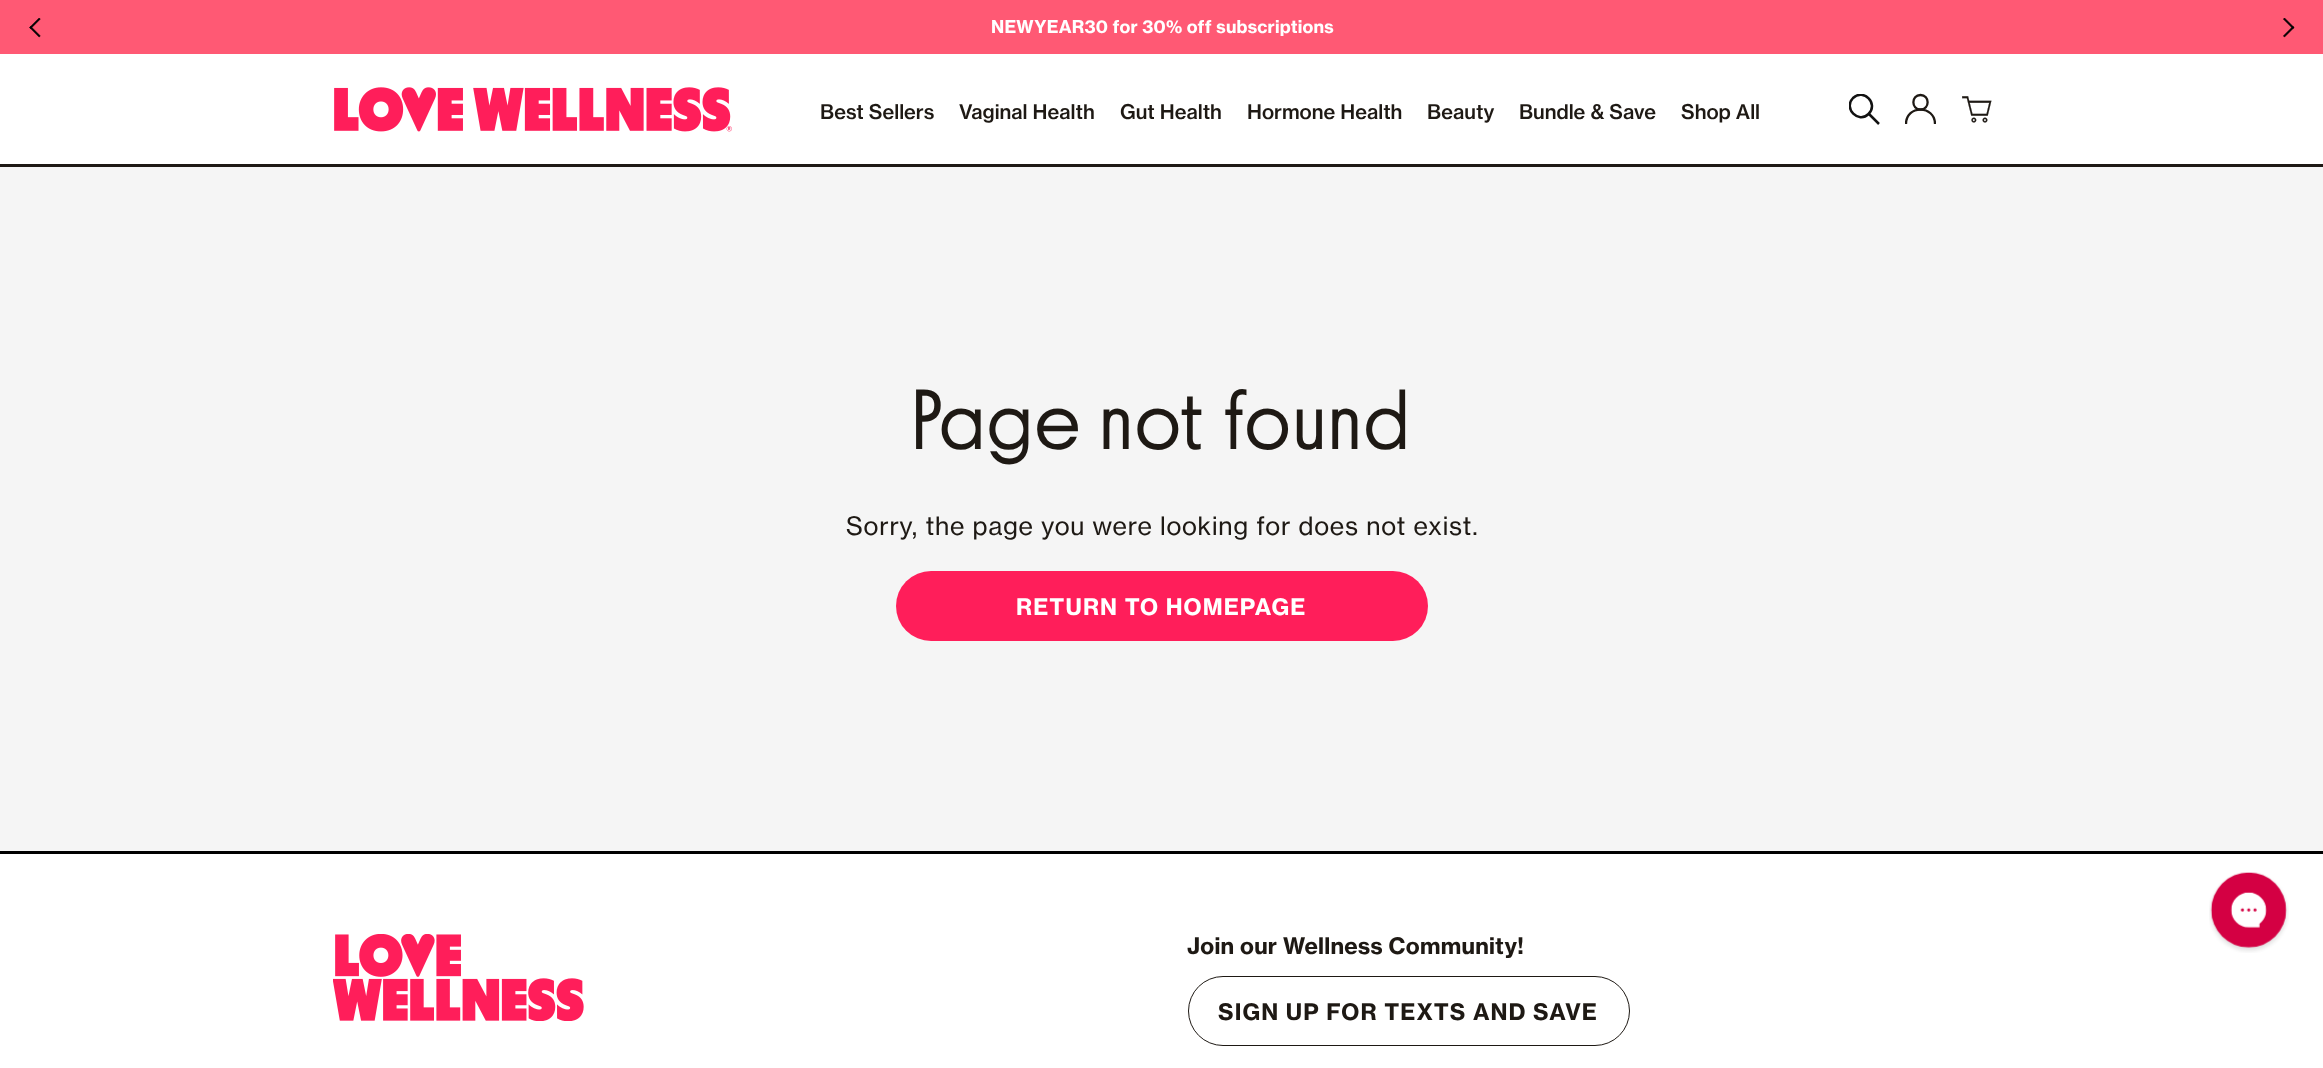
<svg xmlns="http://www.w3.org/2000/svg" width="2323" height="1068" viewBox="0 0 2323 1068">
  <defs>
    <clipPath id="clip1"><path d="M1849 94h31v31H1849z"/></clipPath>
    <clipPath id="clip2"><path d="M1905 93h31v32H1905z"/></clipPath>
  </defs>
  <rect width="100%" height="100%" fill="#fff"/>
  <path d="M0 0h2323v54H0z" fill="#ff5974"/>
  <image x="29" y="18" width="12" height="20" href="img/1.png"/>
  <image x="2283" y="18" width="12" height="20" href="img/2.png"/>
  <path d="M0 164h2323v3H0z" fill="#1e1914"/>
  <image x="334" y="87" width="398" height="45" href="img/3.png"/>
  <g clip-path="url(#clip1)">
    <path d="M1868.5 113.5L1879 124M1868.5 114C1858.5 124 1843 108.5 1853 98C1863.5 88 1879 103.5 1868.5 114Z" fill="none" stroke="#121212" stroke-width="2.5"/>
  </g>
  <g clip-path="url(#clip2)">
    <path d="M1935 124C1935 105 1906 104.5 1906 124" fill="none" stroke="#1e1914" stroke-width="2.3"/>
  </g>
  <path d="M1920.5 109.5C1930 109.5 1930 95 1920.5 95C1911 95 1911 109.5 1920.5 109.5Z" fill="none" stroke="#1e1914" stroke-width="2.3"/>
  <image x="1962" y="96" width="30" height="27" href="img/4.png"/>
  <path d="M0 167h2323v684H0z" fill="#f5f5f5"/>
  <rect x="896" y="571" width="532" height="70" rx="35" fill="#ff1e5a"/>
  <image x="2209" y="872" width="80" height="81" href="img/5.png"/>
  <path d="M0 851h2323v3H0z" fill="#000"/>
  <image x="333" y="934" width="251" height="87" href="img/6.png"/>
  <rect x="1188.5" y="976.5" width="441" height="69" rx="34.5" fill="none" stroke="#1e1914"/>
  <text x="991" y="33" font-family="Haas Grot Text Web" font-size="17.5" font-weight="bold" letter-spacing="0.2" fill="#fff">NEWYEAR30 for 30% off subscriptions</text>
  <g font-family="Haas Grot Text Web" font-size="20" font-weight="500" fill="#1e1914">
    <text x="820" y="119">Best Sellers</text>
    <text x="959" y="119">Vaginal Health</text>
    <text x="1120" y="119">Gut Health</text>
    <text x="1247" y="119">Hormone Health</text>
    <text x="1427" y="119">Beauty</text>
    <text x="1519" y="119">Bundle &amp; Save</text>
    <text x="1681" y="119">Shop All</text>
  </g>
  <text x="912" y="449" font-family="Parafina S" font-size="85" letter-spacing="2.5" fill="#1e1914">Page not found</text>
  <text x="846" y="535" font-family="'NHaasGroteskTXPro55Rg'" font-size="25" letter-spacing="0.75" fill="#1e1914">Sorry, the page you were looking for does not exist.</text>
  <text x="1016" y="615" font-family="Haas Grot Text Web" font-size="22.5" font-weight="bold" letter-spacing="1.1" fill="#fff">RETURN TO HOMEPAGE</text>
  <text x="1187" y="954" font-family="Haas Grot Text Web" font-size="22.5" font-weight="bold" letter-spacing="0.25" fill="#1e1914">Join our Wellness Community!</text>
  <text x="1218" y="1020" font-family="Haas Grot Text Web" font-size="22.5" font-weight="bold" letter-spacing="1.1" fill="#1e1914">SIGN UP FOR TEXTS AND SAVE</text>
</svg>
